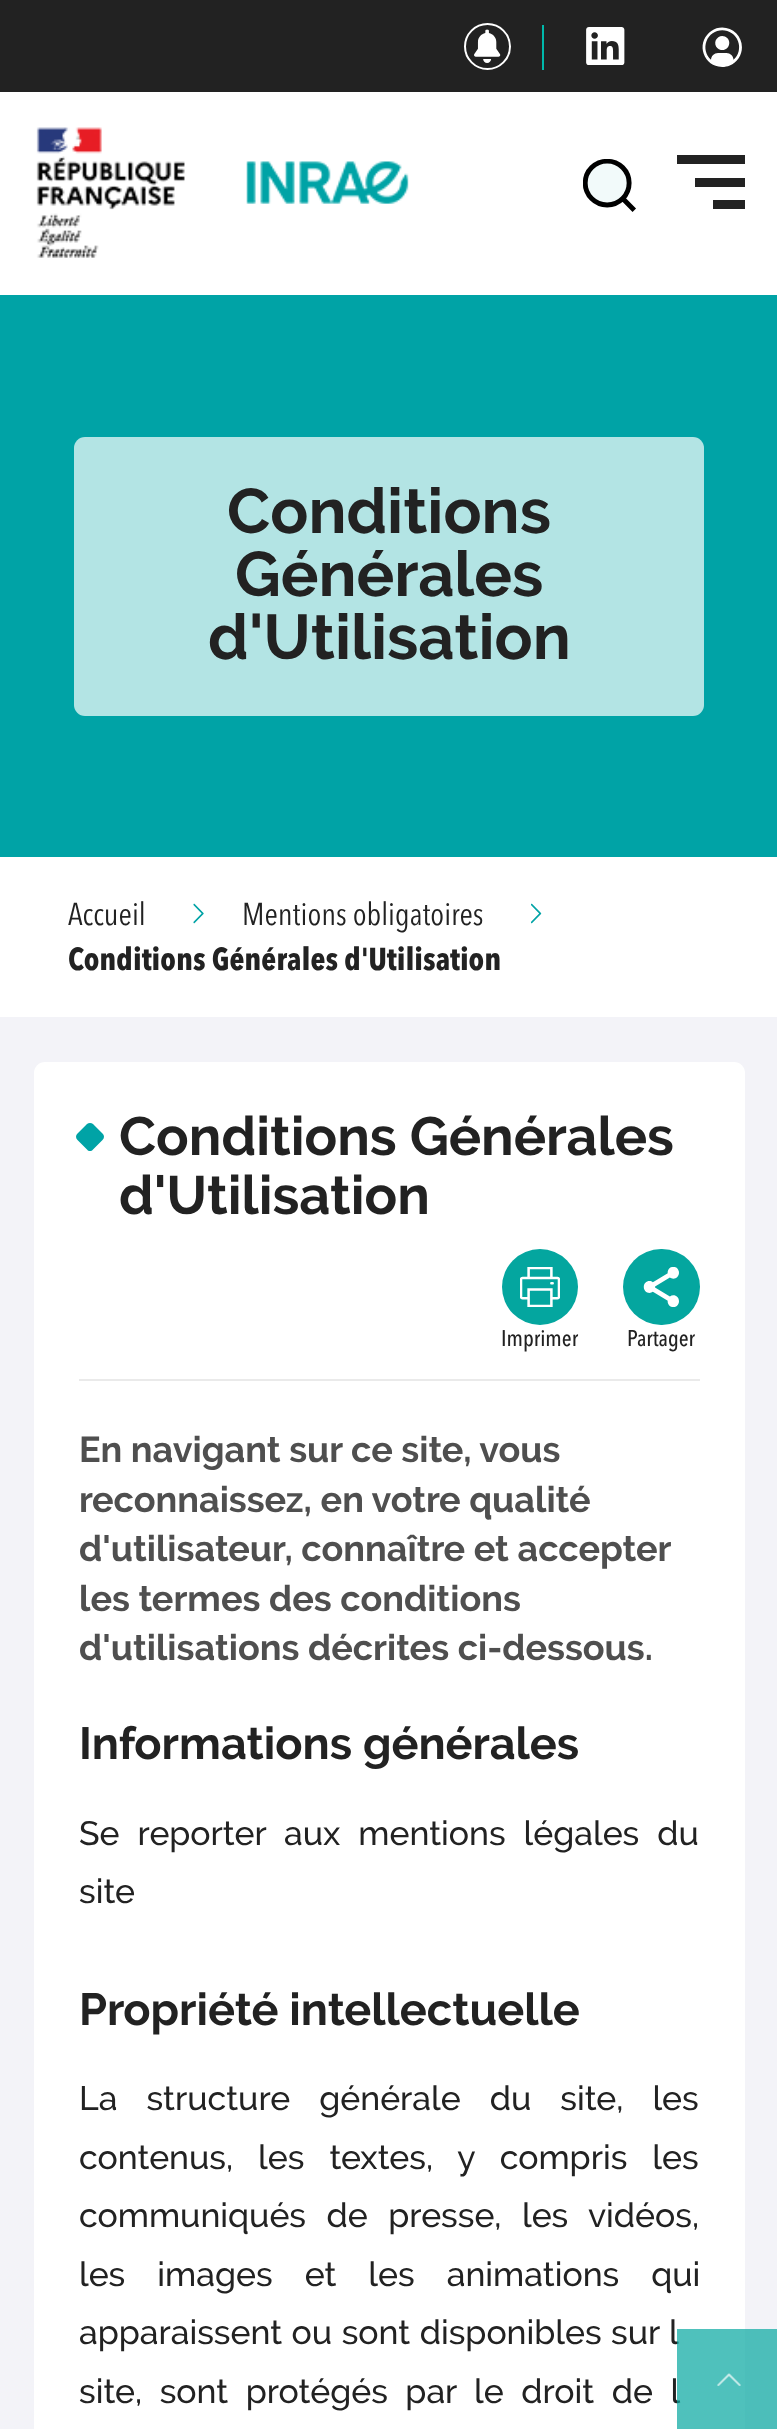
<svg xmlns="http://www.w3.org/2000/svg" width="777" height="2429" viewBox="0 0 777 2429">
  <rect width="100%" height="100%" fill="#fff"/>
  <path d="M0 0h777v92H0z" fill="#222"/>
  <circle cx="487.5" cy="46.5" r="22.5" fill="none" stroke="#fff" stroke-width="2"/>
  <image x="474" y="29" width="27" height="34" href="img/1.png"/>
  <path d="M542 25h2v45H542z" fill="#00b9ab"/>
  <image x="586" y="27" width="39" height="38" href="img/2.png"/>
  <image x="702" y="27" width="40" height="40" href="img/3.png"/>
  <image x="36" y="127" width="373" height="131" href="img/4.png"/>
  <image x="583" y="159" width="53" height="53" href="img/5.png"/>
  <path d="M677 155h68v9H677z" fill="#222"/>
  <path d="M695 178h50v9H695z" fill="#222"/>
  <path d="M713 200h32v9H713z" fill="#222"/>
  <path d="M0 295h777v562H0z" fill="#00a3a6"/>
  <rect x="74" y="437" width="630" height="279" rx="11" fill="#b3e4e4"/>
  <image x="193" y="903" width="11" height="21" href="img/6.png"/>
  <image x="531" y="903" width="11" height="21" href="img/7.png"/>
  <path d="M0 1017h777v1412H0z" fill="#f3f3f8"/>
  <rect x="34" y="1062" width="711" height="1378" rx="11" fill="#fff"/>
  <path d="M79 1379h621v2H79z" fill="#eaeaea"/>
  <path d="M93 1124L102.5 1133.5C104.5 1135.5 104.5 1138 102.5 1140L93 1149.5C91.5 1151.5 88.5 1151.5 87 1149.5L77.5 1140C75.5 1138 75.5 1135.5 77.5 1133.5L87 1124C88.5 1122.5 91.5 1122.5 93 1124Z" fill="#00a3a6"/>
  <circle cx="540" cy="1287" r="38" fill="#04a69f"/>
  <image x="520" y="1267" width="40" height="40" href="img/8.png"/>
  <rect x="623" y="1249" width="77" height="76" rx="38" fill="#04a69f"/>
  <image x="643" y="1267" width="36" height="40" href="img/9.png"/>
  <g font-family="Raleway" font-size="63" font-weight="bold" fill="#222">
    <text x="227" y="533">Conditions</text>
    <text x="235" y="596">Générales</text>
    <text x="208" y="659">d'Utilisation</text>
  </g>
  <g font-family="Avenir Next" font-size="31.5" fill="#222">
    <text x="68" y="925">Accueil</text>
    <text x="242" y="925">Mentions obligatoires</text>
  </g>
  <text x="68" y="970" font-family="Avenir Next" font-size="31.5" font-weight="bold" fill="#222">Conditions Générales d'Utilisation</text>
  <g font-family="Raleway" font-size="54" font-weight="bold" fill="#222">
    <text x="119" y="1155">Conditions Générales</text>
    <text x="119" y="1214">d'Utilisation</text>
  </g>
  <g font-family="Avenir Next" font-size="22.5" font-weight="500" fill="#222">
    <text x="501" y="1346">Imprimer</text>
    <text x="627" y="1346">Partager</text>
  </g>
  <g font-family="Raleway" font-size="36" font-weight="bold" fill="#4f4f4f">
    <text x="79" y="1462">En navigant sur ce site, vous</text>
    <text x="79" y="1512">reconnaissez, en votre qualité</text>
    <text x="79" y="1561">d'utilisateur, connaître et accepter</text>
    <text x="79" y="1611">les termes des conditions</text>
    <text x="79" y="1660">d'utilisations décrites ci-dessous.</text>
  </g>
  <text x="79" y="1759" font-family="Raleway" font-size="45" font-weight="bold" fill="#222">Informations générales</text>
  <g font-family="Raleway" font-size="33.75" font-weight="500" fill="#222">
    <text x="79" y="1845" word-spacing="9.5">Se reporter aux mentions légales du</text>
    <text x="79" y="1903">site</text>
  </g>
  <text x="79" y="2025" font-family="Raleway" font-size="45" font-weight="bold" fill="#222">Propriété intellectuelle</text>
  <g font-family="Raleway" font-size="33.75" font-weight="500" fill="#222">
    <text x="79" y="2110" word-spacing="20.5">La structure générale du site, les</text>
    <text x="79" y="2169" word-spacing="16.5">contenus, les textes, y compris les</text>
    <text x="79" y="2227" word-spacing="12">communiqués de presse, les vidéos,</text>
    <text x="79" y="2286" word-spacing="23.5">les images et les animations qui</text>
    <text x="79" y="2344" word-spacing="1">apparaissent ou sont disponibles sur l</text>
    <text x="79" y="2403" word-spacing="9">site, sont protégés par le droit de l</text>
  </g>
  <path d="M677 2329h100v100H677z" fill="#04a69fb3"/>
  <image x="717" y="2373" width="24" height="13" href="img/10.png"/>
</svg>
